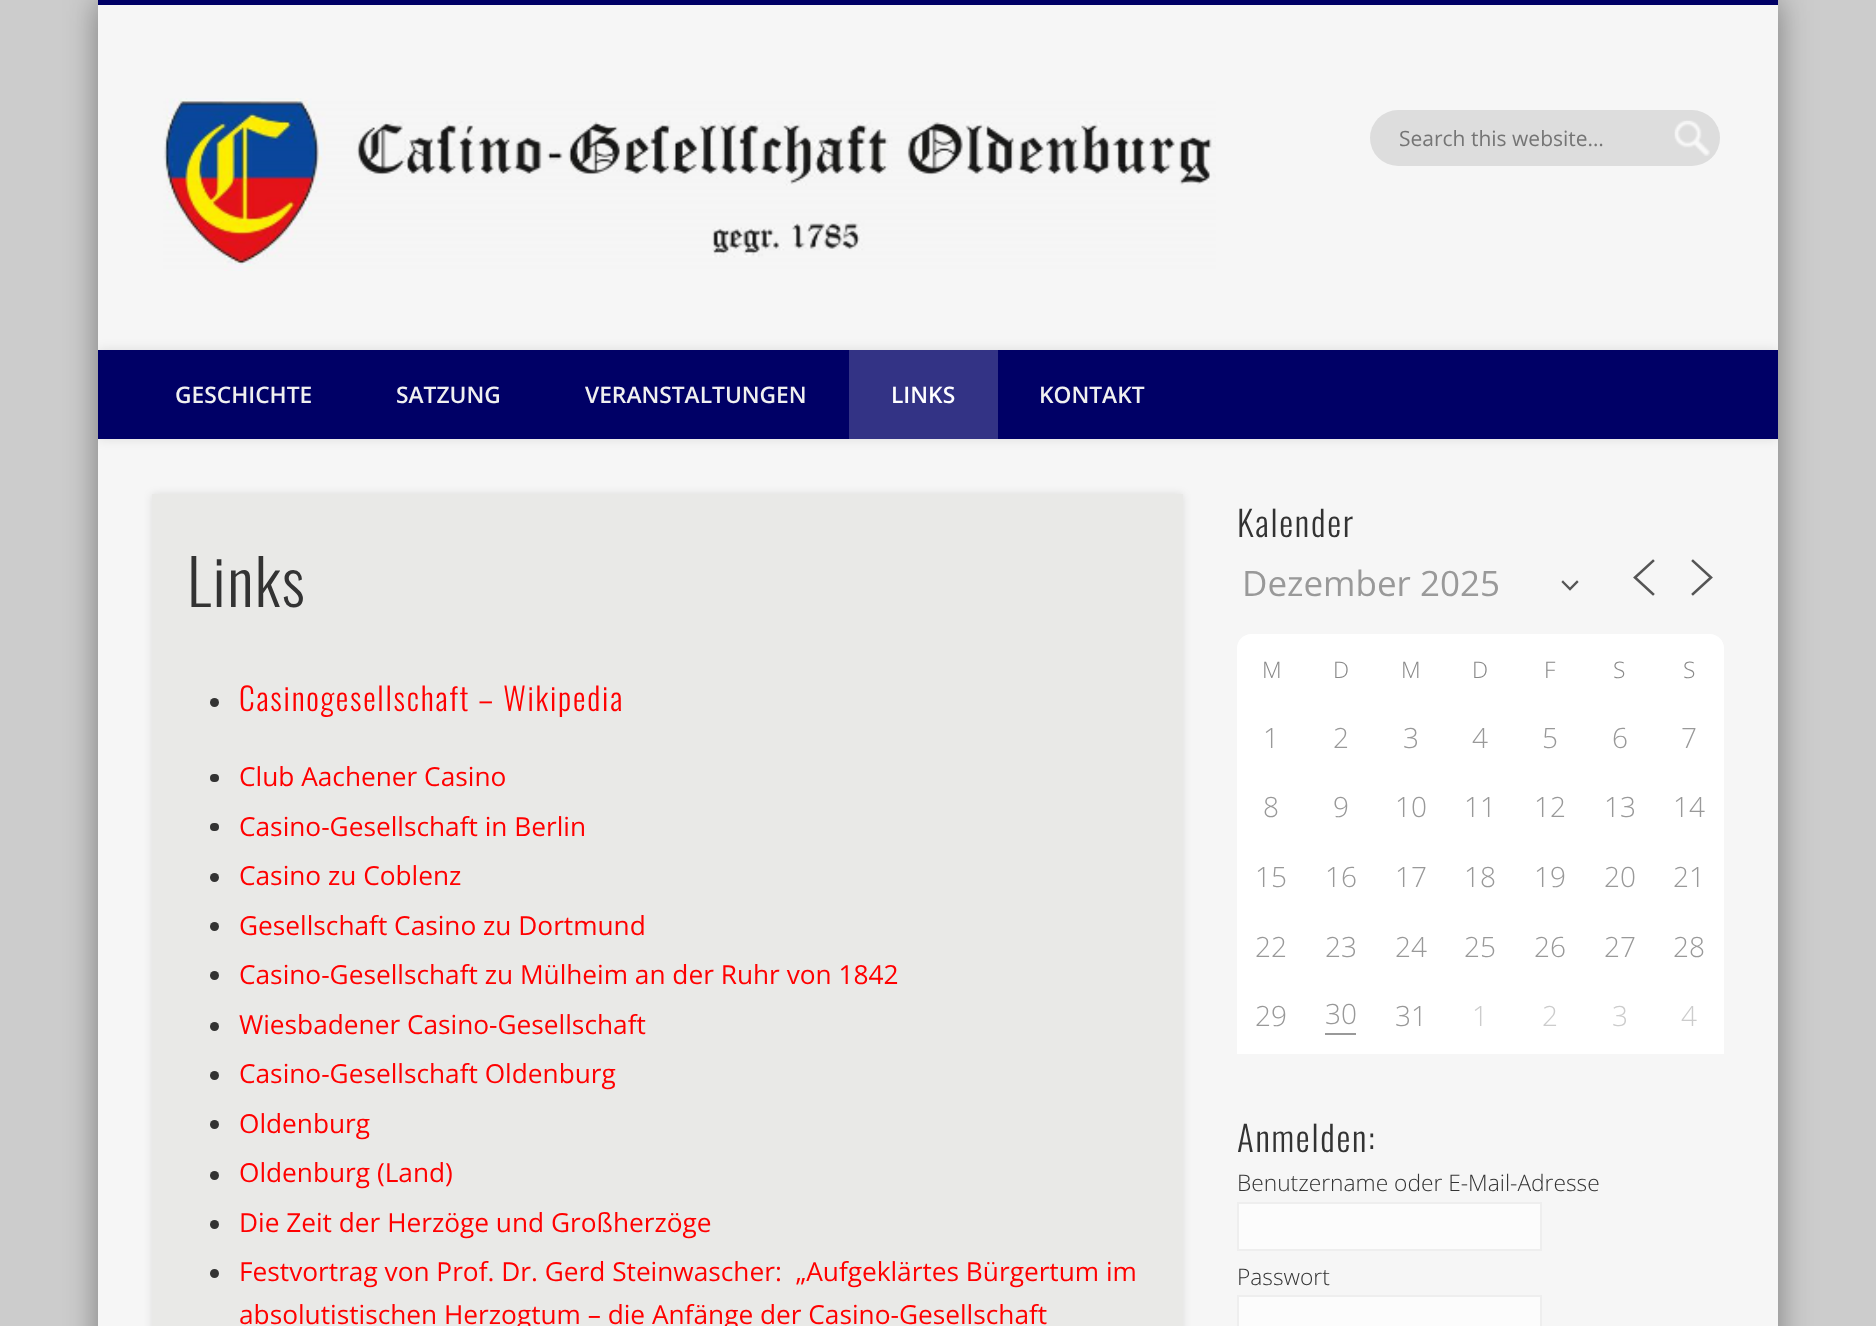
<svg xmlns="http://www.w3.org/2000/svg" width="1876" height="1326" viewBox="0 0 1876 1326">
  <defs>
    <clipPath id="clip1"><path d="M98 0h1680v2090H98z"/></clipPath>
  </defs>
  <rect width="100%" height="100%" fill="#ccc"/>
  <path d="M98 0h1680v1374H98z" fill="#00000066" filter="blur(16px)"/>
  <path d="M98 5h1680v1321H98z" fill="#f6f6f6"/>
  <path d="M98 0h1680v5H98z" fill="#006"/>
  <image x="163" y="98" width="1053" height="173" href="img/1.png"/>
  <rect x="1370" y="110" width="350" height="56" rx="28" fill="#ddd"/>
  <image x="1674" y="120" width="36" height="36" href="img/2.png"/>
  <g clip-path="url(#clip1)">
    <path d="M98 350h1680v89H98z" fill="#0000001a" filter="blur(6px)"/>
  </g>
  <path d="M98 350h1680v89H98z" fill="#006"/>
  <path d="M849 350h149v89H849z" fill="#333385"/>
  <path d="M152 494h1031v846H152z" fill="#0000001a" filter="blur(4.5px)"/>
  <path d="M152 494h1031v832H152z" fill="#e9e9e7"/>
  <circle cx="214.5" cy="702.5" r="4.5" fill="#333"/>
  <rect x="210" y="774" width="9" height="8" rx="4" fill="#333"/>
  <rect x="210" y="823" width="9" height="8" rx="4" fill="#333"/>
  <circle cx="214.5" cy="877.5" r="4.5" fill="#333"/>
  <circle cx="214.5" cy="926.5" r="4.5" fill="#333"/>
  <circle cx="214.5" cy="975.5" r="4.5" fill="#333"/>
  <circle cx="214.5" cy="1026.5" r="4.5" fill="#333"/>
  <circle cx="214.5" cy="1075.5" r="4.5" fill="#333"/>
  <circle cx="214.5" cy="1124.5" r="4.5" fill="#333"/>
  <circle cx="214.5" cy="1175.5" r="4.5" fill="#333"/>
  <circle cx="214.5" cy="1224.5" r="4.5" fill="#333"/>
  <circle cx="214.5" cy="1273.5" r="4.5" fill="#333"/>
  <path d="M1563 582L1570 589L1577 582" fill="none" stroke="#555" stroke-width="2.3" stroke-linecap="square"/>
  <path d="M1653 594L1635 577.5L1653 561" fill="none" stroke="#555" stroke-width="2.6" stroke-linecap="square"/>
  <path d="M1693 594L1711 577.5L1693 561" fill="none" stroke="#555" stroke-width="2.6" stroke-linecap="square"/>
  <path d="M1251 634H1710C1717.5 634 1724 640.5 1724 648V705H1237V648C1237 640.5 1243.5 634 1251 634Z" fill="#fff"/>
  <path d="M1237 705h487v349H1237z" fill="#fff"/>
  <path d="M1325 1033h31v2H1325z" fill="#999"/>
  <path d="M1238 1203h303v47H1238z" fill="#fcfcfc" stroke="#eee" stroke-width="2"/>
  <path d="M1238 1296h303v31H1238z" fill="#fcfcfc" stroke="#eee" stroke-width="2"/>
  <text x="1399" y="146" font-family="Open Sans" font-size="21" fill="#757575">Search this website…</text>
  <g font-family="Open Sans" font-size="22.75" font-weight="600" fill="#f0f0f0">
    <text x="175" y="403">GESCHICHTE</text>
    <text x="396" y="403">SATZUNG</text>
    <text x="585" y="403">VERANSTALTUNGEN</text>
  </g>
  <text x="891" y="403" font-family="Open Sans" font-size="22.75" font-weight="600" fill="#fff">LINKS</text>
  <text x="1039" y="403" font-family="Open Sans" font-size="22.75" font-weight="600" fill="#f0f0f0">KONTAKT</text>
  <text x="187" y="607" font-family="Oswald" font-size="63" font-weight="300" letter-spacing="1.75" fill="#333">Links</text>
  <text x="239" y="711" font-family="Oswald" font-size="31.5" font-weight="300" letter-spacing="1.75" fill="#f00">Casinogesellschaft – Wikipedia</text>
  <g font-family="Open Sans" font-size="26.25" fill="#f00">
    <text x="239" y="786">Club Aachener Casino</text>
    <text x="239" y="836">Casino-Gesellschaft in Berlin</text>
    <text x="239" y="885">Casino zu Coblenz</text>
    <text x="239" y="935">Gesellschaft Casino zu Dortmund</text>
    <text x="239" y="984">Casino-Gesellschaft zu Mülheim an der Ruhr von 1842</text>
    <text x="239" y="1034">Wiesbadener Casino-Gesellschaft</text>
    <text x="239" y="1083">Casino-Gesellschaft Oldenburg</text>
    <text x="239" y="1133">Oldenburg</text>
    <text x="239" y="1182">Oldenburg (Land)</text>
    <text x="239" y="1232">Die Zeit der Herzöge und Großherzöge</text>
    <text x="239" y="1281" xml:space="preserve">Festvortrag von Prof. Dr. Gerd Steinwascher:  „Aufgeklärtes Bürgertum im</text>
    <text x="239" y="1324">absolutistischen Herzogtum – die Anfänge der Casino-Gesellschaft</text>
  </g>
  <text x="1237" y="537" font-family="Oswald" font-size="35" font-weight="300" letter-spacing="1.75" fill="#333">Kalender</text>
  <text x="1242" y="596" font-family="Open Sans" font-size="35" fill="#999">Dezember 2025</text>
  <g font-family="Open Sans" font-size="22.75" font-weight="300" fill="#888">
    <text x="1262" y="678">M</text>
    <text x="1333" y="678">D</text>
    <text x="1401" y="678">M</text>
    <text x="1472" y="678">D</text>
    <text x="1544" y="678">F</text>
    <text x="1613" y="678">S</text>
    <text x="1683" y="678">S</text>
  </g>
  <g font-family="Open Sans" font-size="28" font-weight="300" fill="#999">
    <text x="1263" y="748">1</text>
    <text x="1333" y="748">2</text>
    <text x="1403" y="748">3</text>
    <text x="1472" y="748">4</text>
    <text x="1542" y="748">5</text>
    <text x="1612" y="748">6</text>
    <text x="1681" y="748">7</text>
    <text x="1263" y="817">8</text>
    <text x="1333" y="817">9</text>
    <text x="1395" y="817">10</text>
    <text x="1464" y="817">11</text>
    <text x="1534" y="817">12</text>
    <text x="1604" y="817">13</text>
    <text x="1673" y="817">14</text>
    <text x="1255" y="887">15</text>
    <text x="1325" y="887">16</text>
    <text x="1395" y="887">17</text>
    <text x="1464" y="887">18</text>
    <text x="1534" y="887">19</text>
    <text x="1604" y="887">20</text>
    <text x="1673" y="887">21</text>
    <text x="1255" y="957">22</text>
    <text x="1325" y="957">23</text>
    <text x="1395" y="957">24</text>
    <text x="1464" y="957">25</text>
    <text x="1534" y="957">26</text>
    <text x="1604" y="957">27</text>
    <text x="1673" y="957">28</text>
    <text x="1255" y="1026">29</text>
    <text x="1325" y="1024">30</text>
    <text x="1395" y="1026">31</text>
  </g>
  <g font-family="Open Sans" font-size="28" font-weight="300" fill="#ccc">
    <text x="1472" y="1026">1</text>
    <text x="1542" y="1026">2</text>
    <text x="1612" y="1026">3</text>
    <text x="1681" y="1026">4</text>
  </g>
  <text x="1237" y="1152" font-family="Oswald" font-size="35" font-weight="300" letter-spacing="1.75" fill="#333">Anmelden:</text>
  <g font-family="Open Sans" font-size="22.75" font-weight="300" fill="#333">
    <text x="1237" y="1191">Benutzername oder E-Mail-Adresse</text>
    <text x="1237" y="1285">Passwort</text>
  </g>
</svg>
